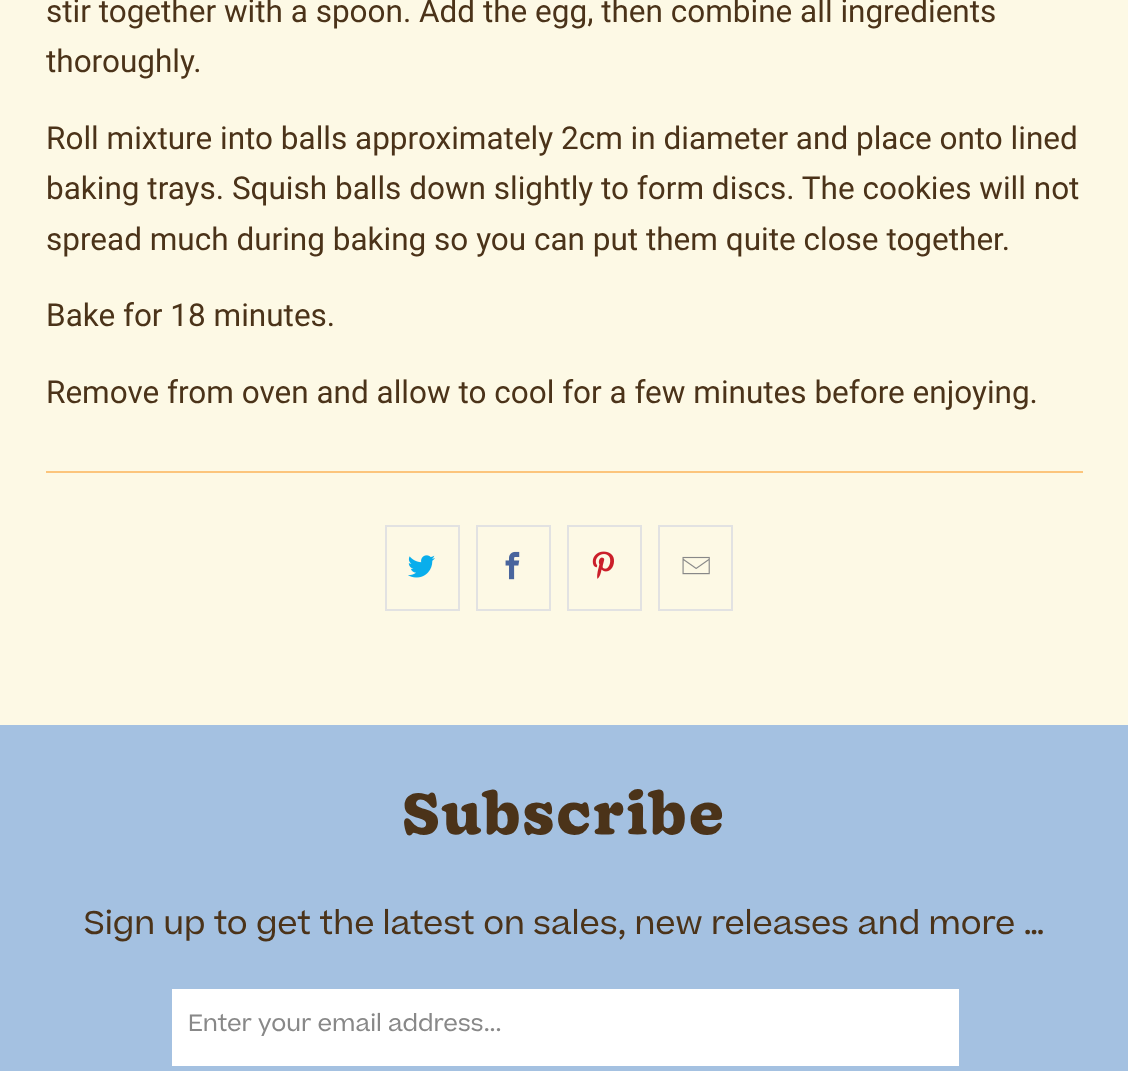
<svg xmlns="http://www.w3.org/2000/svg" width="1128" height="1071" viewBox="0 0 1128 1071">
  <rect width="100%" height="100%" fill="#fdf9e5"/>
  <path d="M46 471h1037v2H46z" fill="#fcc57c"/>
  <path d="M386 526h73v84H386z" fill="none" stroke="#e2e2e2" stroke-width="2"/>
  <image x="408" y="555" width="27" height="23" href="img/1.png"/>
  <path d="M477 526h73v84H477z" fill="none" stroke="#e2e2e2" stroke-width="2"/>
  <image x="505" y="551" width="15" height="29" href="img/2.png"/>
  <path d="M568 526h73v84H568z" fill="none" stroke="#e2e2e2" stroke-width="2"/>
  <image x="592" y="551" width="22" height="28" href="img/3.png"/>
  <path d="M659 526h73v84H659z" fill="none" stroke="#e2e2e2" stroke-width="2"/>
  <image x="682" y="556" width="28" height="19" href="img/4.png"/>
  <path d="M0 725h1128v346H0z" fill="#a4c1e1"/>
  <path d="M172 989h787v77H172z" fill="#fff"/>
  <g font-family="Roboto" font-size="31.5" fill="#4b3319">
    <text x="46" y="22">stir together with a spoon. Add the egg, then combine all ingredients</text>
    <text x="46" y="72">thoroughly.</text>
    <text x="46" y="149">Roll mixture into balls approximately 2cm in diameter and place onto lined</text>
    <text x="46" y="199">baking trays. Squish balls down slightly to form discs. The cookies will not</text>
    <text x="46" y="250">spread much during baking so you can put them quite close together.</text>
    <text x="46" y="326">Bake for 18 minutes.</text>
    <text x="46" y="403">Remove from oven and allow to cool for a few minutes before enjoying.</text>
  </g>
  <text x="402" y="834" font-family="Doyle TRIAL" font-size="56" font-weight="bold" letter-spacing="1.75" fill="#4b3319">Subscribe</text>
  <text x="84" y="934" font-family="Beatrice" font-size="31.5" fill="#4b3319">Sign up to get the latest on sales, new releases and more …</text>
  <text x="188" y="1031" font-family="Beatrice" font-size="22.75" fill="#888">Enter your email address...</text>
</svg>
